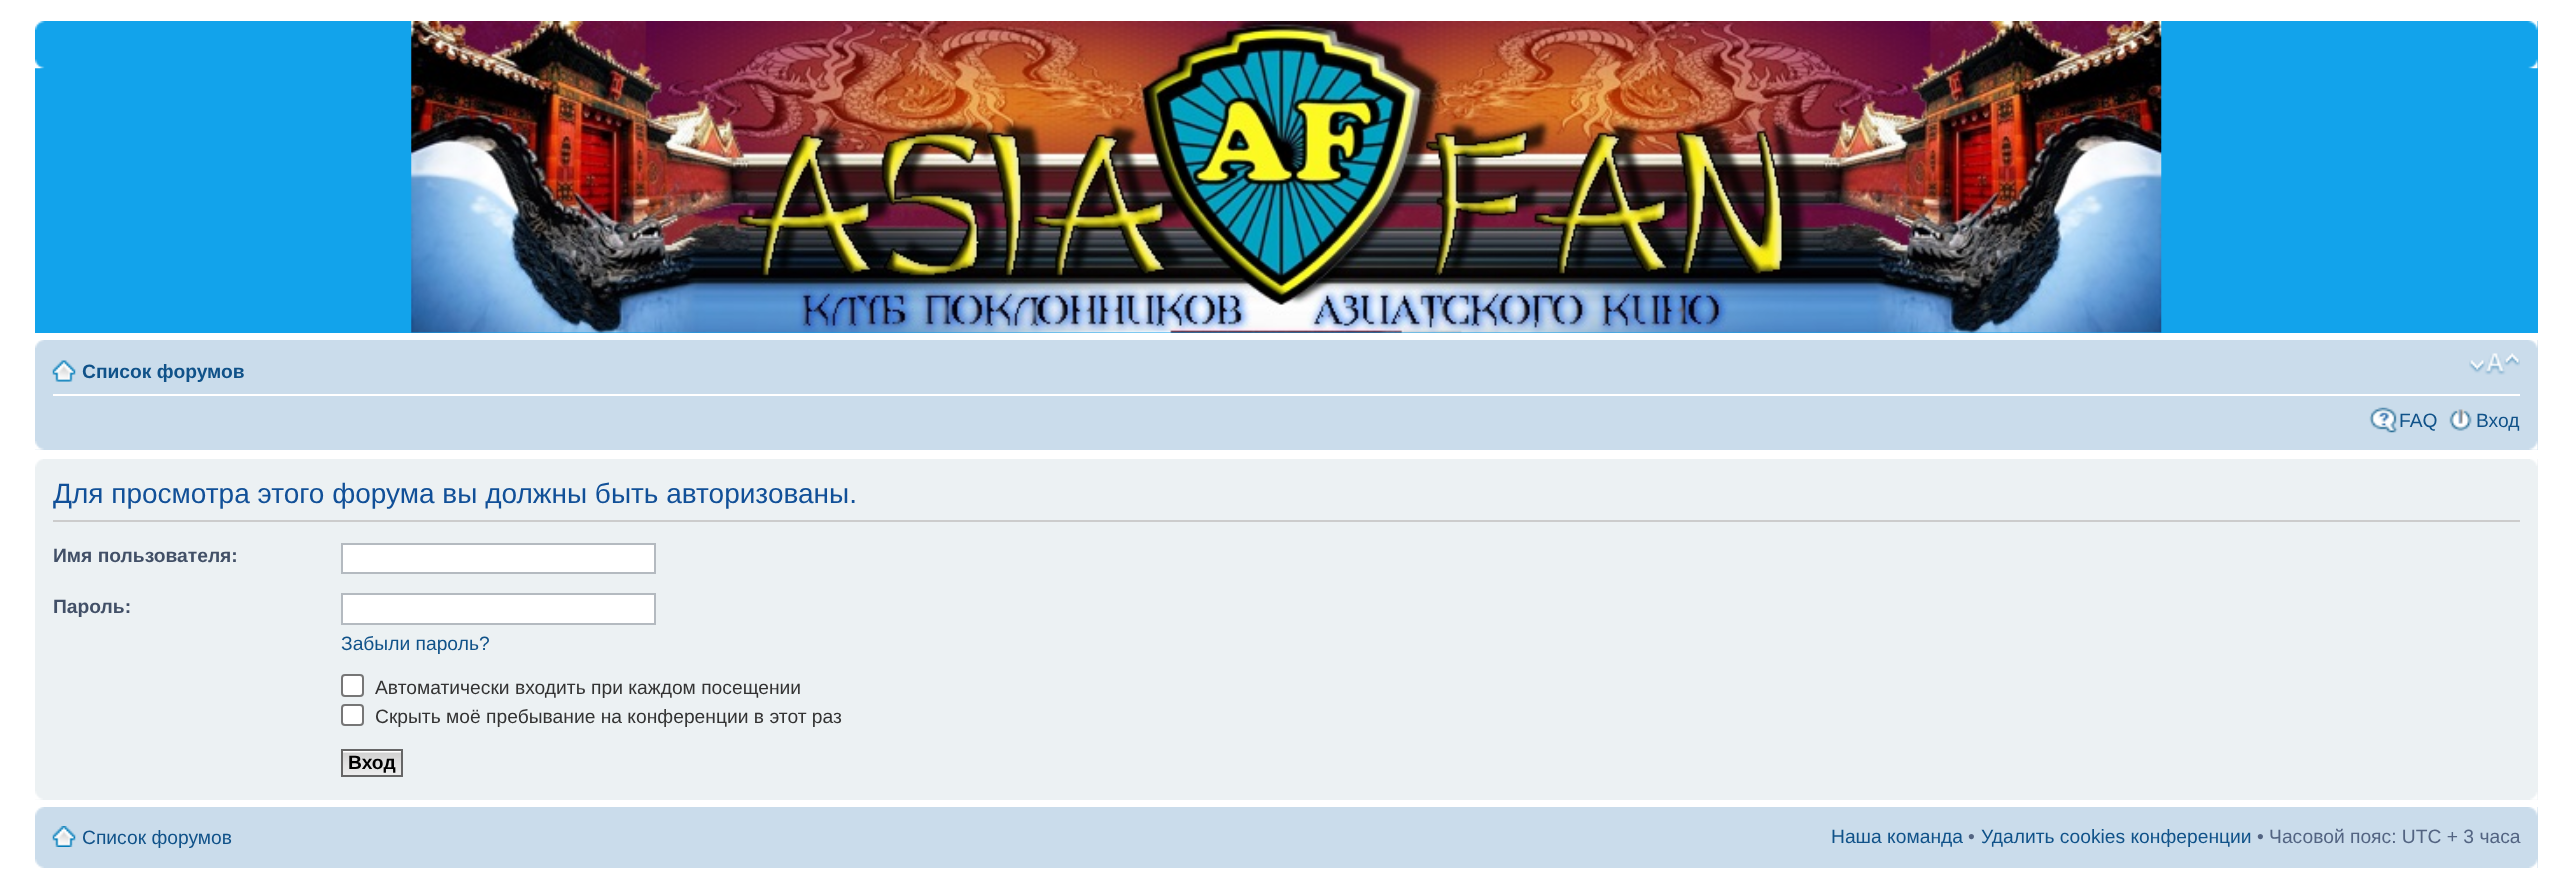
<svg xmlns="http://www.w3.org/2000/svg" width="2572" height="884" viewBox="0 0 2572 884">
  <defs>
    <clipPath id="clip1"><path d="M53 467h2467v324H53z"/></clipPath>
  </defs>
  <rect width="100%" height="100%" fill="#fff"/>
  <path d="M35 21h2503v312H35z" fill="#12a3eb"/>
  <image x="411" y="21" width="1751" height="312" href="img/1.png"/>
  <image x="35" y="21" width="10" height="9" href="img/2.png"/>
  <image x="2527" y="21" width="11" height="9" href="img/3.png"/>
  <image x="35" y="59" width="10" height="10" href="img/4.png"/>
  <image x="2528" y="59" width="10" height="10" href="img/5.png"/>
  <path d="M35 340h2503v110H35z" fill="#cadceb"/>
  <image x="35" y="340" width="9" height="8" href="img/6.png"/>
  <image x="2528" y="340" width="10" height="8" href="img/7.png"/>
  <path d="M53 394h2467v2H53z" fill="#fff"/>
  <image x="52" y="360" width="24" height="22" href="img/8.png"/>
  <image x="2469" y="353" width="51" height="22" href="img/9.png"/>
  <image x="2369" y="407" width="29" height="26" href="img/10.png"/>
  <image x="2449" y="409" width="23" height="22" href="img/11.png"/>
  <image x="35" y="441" width="9" height="9" href="img/12.png"/>
  <image x="2529" y="441" width="9" height="9" href="img/13.png"/>
  <path d="M35 459h2503v341H35z" fill="#ecf1f3"/>
  <image x="35" y="459" width="8" height="8" href="img/14.png"/>
  <image x="2530" y="459" width="8" height="7" href="img/15.png"/>
  <path d="M53 520h2467v2H53z" fill="#ccc"/>
  <path d="M342 544h313v29H342z" fill="#fff" stroke="#b4bac0" stroke-width="2"/>
  <path d="M342 594h313v30H342z" fill="#fff" stroke="#b4bac0" stroke-width="2"/>
  <rect x="342" y="675" width="21" height="21" rx="3" fill="#fff" stroke="#767676" stroke-width="2"/>
  <rect x="342" y="705" width="21" height="20" rx="3" fill="#fff" stroke="#767676" stroke-width="2"/>
  <image x="343" y="751" width="58" height="24" href="img/16.png"/>
  <path d="M342 750h60v26H342z" fill="none" stroke="#666" stroke-width="2"/>
  <image x="35" y="791" width="8" height="9" href="img/17.png"/>
  <image x="2530" y="792" width="8" height="8" href="img/18.png"/>
  <path d="M35 807h2503v61H35z" fill="#cadceb"/>
  <image x="35" y="807" width="9" height="9" href="img/19.png"/>
  <image x="2528" y="807" width="10" height="9" href="img/20.png"/>
  <image x="52" y="826" width="24" height="21" href="img/21.png"/>
  <image x="35" y="859" width="9" height="9" href="img/22.png"/>
  <image x="2529" y="859" width="9" height="9" href="img/23.png"/>
  <text x="82" y="378" font-family="Liberation Sans" font-size="19.25" font-weight="bold" fill="#105289">Список форумов</text>
  <g font-family="Liberation Sans" font-size="19.25" fill="#105289">
    <text x="2399" y="427">FAQ</text>
    <text x="2476" y="427">Вход</text>
  </g>
  <g clip-path="url(#clip1)">
    <text x="53" y="503" font-family="Liberation Sans" font-size="28" fill="#115098">Для просмотра этого форума вы должны быть авторизованы.</text>
  </g>
  <g font-family="Liberation Sans" font-size="19.25" font-weight="bold" fill="#425067">
    <text x="53" y="562">Имя пользователя:</text>
    <text x="53" y="613">Пароль:</text>
  </g>
  <text x="341" y="650" font-family="Liberation Sans" font-size="19.25" fill="#105289">Забыли пароль?</text>
  <g font-family="Liberation Sans" font-size="19.25" fill="#333">
    <text x="375" y="694">Автоматически входить при каждом посещении</text>
    <text x="375" y="723">Скрыть моё пребывание на конференции в этот раз</text>
  </g>
  <text x="348" y="769" font-family="Liberation Sans" font-size="19.25" font-weight="bold" fill="#000">Вход</text>
  <g font-family="Liberation Sans" font-size="19.25" fill="#105289">
    <text x="82" y="844">Список форумов</text>
    <text x="1831" y="843">Наша команда</text>
  </g>
  <text x="1968" y="843" font-family="Liberation Sans" font-size="19.25" fill="#536482">•</text>
  <text x="1981" y="843" font-family="Liberation Sans" font-size="19.25" fill="#105289">Удалить cookies конференции</text>
  <text x="2257" y="843" font-family="Liberation Sans" font-size="19.25" fill="#536482">• Часовой пояс: UTC + 3 часа</text>
</svg>
